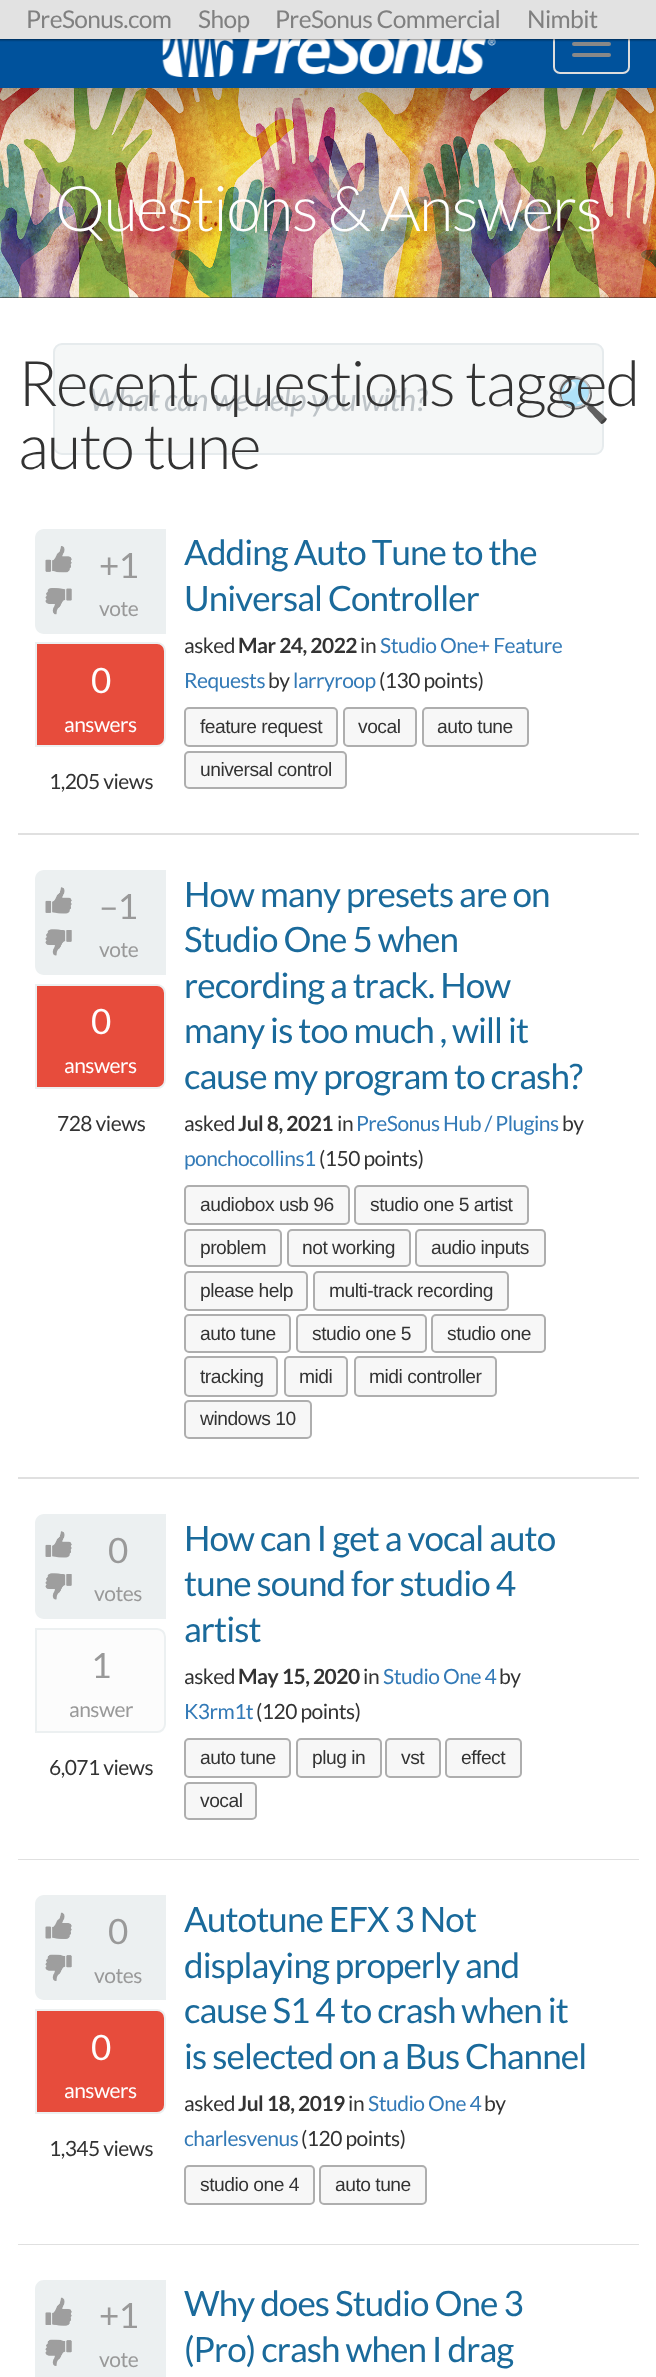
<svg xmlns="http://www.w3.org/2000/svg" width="656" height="2377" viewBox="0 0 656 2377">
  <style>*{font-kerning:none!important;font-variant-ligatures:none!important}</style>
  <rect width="100%" height="100%" fill="#fff"/>
  <path d="M0 39h656v49H0z" fill="#00529c"/>
  <image x="162" y="39" width="334" height="38" href="img/1.png"/>
  <rect x="554" y="15" width="75" height="58" rx="6" fill="none" stroke="#ddd" stroke-width="2"/>
  <rect x="572" y="42" width="39" height="4" rx="2" fill="#888"/>
  <path d="M-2 -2h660v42H-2z" fill="#00000080" filter="blur(1px)"/>
  <path d="M0 0h656v39H0z" fill="#e2e2e2"/>
  <rect x="572" y="53" width="39" height="4" rx="2" fill="#888"/>
  <path d="M0 297h656v1H0z" fill="#222"/>
  <image x="0" y="88" width="656" height="210" href="img/2.png"/>
  <rect x="54" y="344" width="549" height="110" rx="8" fill="#f5f7f7" stroke="#e6ebed" stroke-width="2"/>
  <path d="M18 833h621v2H18z" fill="#e0e0e0"/>
  <path d="M44 529H166V634H44C39 634 35 630 35 625V538C35 533 39 529 44 529Z" fill="#ecf0f1"/>
  <image x="45" y="546" width="27" height="27" href="img/3.png"/>
  <image x="45" y="588" width="27" height="27" href="img/4.png"/>
  <path d="M36 643H157C161.5 643 165 646.5 165 651V738C165 742.5 161.5 746 157 746H36Z" fill="#e74c3c" stroke="#ecf0f1" stroke-width="2"/>
  <rect x="185" y="708" width="152" height="38" rx="4" fill="#f7f7f7" stroke="#aeaeae" stroke-width="2"/>
  <rect x="344" y="708" width="72" height="38" rx="4" fill="#f7f7f7" stroke="#aeaeae" stroke-width="2"/>
  <rect x="423" y="708" width="105" height="38" rx="4" fill="#f7f7f7" stroke="#aeaeae" stroke-width="2"/>
  <rect x="185" y="752" width="161" height="36" rx="4" fill="#f7f7f7" stroke="#aeaeae" stroke-width="2"/>
  <path d="M18 1477h621v2H18z" fill="#e0e0e0"/>
  <path d="M44 870H166V975H44C39 975 35 971 35 966V879C35 874 39 870 44 870Z" fill="#ecf0f1"/>
  <image x="45" y="887" width="27" height="27" href="img/5.png"/>
  <image x="45" y="929" width="27" height="27" href="img/6.png"/>
  <path d="M36 985H157C161.5 985 165 988.5 165 993V1080C165 1084.5 161.5 1088 157 1088H36Z" fill="#e74c3c" stroke="#ecf0f1" stroke-width="2"/>
  <rect x="185" y="1186" width="164" height="38" rx="4" fill="#f7f7f7" stroke="#aeaeae" stroke-width="2"/>
  <rect x="355" y="1186" width="173" height="38" rx="4" fill="#f7f7f7" stroke="#aeaeae" stroke-width="2"/>
  <rect x="185" y="1230" width="96" height="36" rx="4" fill="#f7f7f7" stroke="#aeaeae" stroke-width="2"/>
  <rect x="288" y="1230" width="122" height="36" rx="4" fill="#f7f7f7" stroke="#aeaeae" stroke-width="2"/>
  <rect x="416" y="1230" width="129" height="36" rx="4" fill="#f7f7f7" stroke="#aeaeae" stroke-width="2"/>
  <rect x="185" y="1272" width="122" height="38" rx="4" fill="#f7f7f7" stroke="#aeaeae" stroke-width="2"/>
  <rect x="314" y="1272" width="194" height="38" rx="4" fill="#f7f7f7" stroke="#aeaeae" stroke-width="2"/>
  <rect x="185" y="1315" width="105" height="37" rx="4" fill="#f7f7f7" stroke="#aeaeae" stroke-width="2"/>
  <rect x="297" y="1315" width="129" height="37" rx="4" fill="#f7f7f7" stroke="#aeaeae" stroke-width="2"/>
  <rect x="432" y="1315" width="113" height="37" rx="4" fill="#f7f7f7" stroke="#aeaeae" stroke-width="2"/>
  <rect x="185" y="1357" width="92" height="39" rx="4" fill="#f7f7f7" stroke="#aeaeae" stroke-width="2"/>
  <rect x="285" y="1357" width="62" height="39" rx="4" fill="#f7f7f7" stroke="#aeaeae" stroke-width="2"/>
  <rect x="355" y="1357" width="141" height="39" rx="4" fill="#f7f7f7" stroke="#aeaeae" stroke-width="2"/>
  <rect x="185" y="1401" width="126" height="37" rx="4" fill="#f7f7f7" stroke="#aeaeae" stroke-width="2"/>
  <path d="M18 1859h621v1H18z" fill="#e0e0e0"/>
  <path d="M44 1514H166V1619H44C39 1619 35 1615 35 1610V1523C35 1518 39 1514 44 1514Z" fill="#ecf0f1"/>
  <image x="45" y="1531" width="27" height="27" href="img/5.png"/>
  <image x="45" y="1573" width="27" height="27" href="img/6.png"/>
  <path d="M36 1629H157C161.5 1629 165 1632.5 165 1637V1724C165 1728.5 161.5 1732 157 1732H36Z" fill="#fcfcfc" stroke="#ecf0f1" stroke-width="2"/>
  <rect x="185" y="1739" width="105" height="38" rx="4" fill="#f7f7f7" stroke="#aeaeae" stroke-width="2"/>
  <rect x="297" y="1739" width="84" height="38" rx="4" fill="#f7f7f7" stroke="#aeaeae" stroke-width="2"/>
  <rect x="386" y="1739" width="54" height="38" rx="4" fill="#f7f7f7" stroke="#aeaeae" stroke-width="2"/>
  <rect x="446" y="1739" width="75" height="38" rx="4" fill="#f7f7f7" stroke="#aeaeae" stroke-width="2"/>
  <rect x="185" y="1783" width="71" height="36" rx="4" fill="#f7f7f7" stroke="#aeaeae" stroke-width="2"/>
  <path d="M18 2244h621v1H18z" fill="#e0e0e0"/>
  <path d="M44 1895H166V2000H44C39 2000 35 1996 35 1991V1904C35 1899 39 1895 44 1895Z" fill="#ecf0f1"/>
  <image x="45" y="1912" width="27" height="27" href="img/7.png"/>
  <image x="45" y="1954" width="27" height="27" href="img/8.png"/>
  <path d="M36 2010H157C161.5 2010 165 2013.5 165 2018V2105C165 2109.5 161.5 2113 157 2113H36Z" fill="#e74c3c" stroke="#ecf0f1" stroke-width="2"/>
  <rect x="185" y="2166" width="129" height="38" rx="4" fill="#f7f7f7" stroke="#aeaeae" stroke-width="2"/>
  <rect x="320" y="2166" width="106" height="38" rx="4" fill="#f7f7f7" stroke="#aeaeae" stroke-width="2"/>
  <path d="M44 2280H166V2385H44C39 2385 35 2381 35 2376V2289C35 2284 39 2280 44 2280Z" fill="#ecf0f1"/>
  <image x="45" y="2297" width="27" height="29" href="img/9.png"/>
  <image x="45" y="2339" width="27" height="27" href="img/8.png"/>
  <g font-family="Lato" font-size="24.5" letter-spacing="-0.6" fill="#808080">
    <text x="26" y="28">PreSonus.com</text>
    <text x="198" y="28">Shop</text>
    <text x="275" y="28">PreSonus Commercial</text>
    <text x="527" y="28">Nimbit</text>
  </g>
  <text x="55" y="231" font-family="Lato" font-size="63" font-weight="300" letter-spacing="-1.6" fill="#fefefe">Questions &amp; Answers</text>
  <text x="89" y="411" font-family="Lato" font-size="31.5" font-style="italic" letter-spacing="-0.8" fill="#bdc3c7">What can we help you with?</text>
  <text x="555" y="415" font-family="Noto Color Emoji" font-size="44" letter-spacing="-0.6" fill="#ccc">🔍</text>
  <g font-family="Lato" font-size="63" font-weight="300" letter-spacing="-1.6" fill="#333">
    <text x="18" y="406">Recent questions tagged</text>
    <text x="18" y="469">auto tune</text>
  </g>
  <text x="99" y="578" font-family="Lato" font-size="35" letter-spacing="-0.9" fill="#999">+1</text>
  <text x="99" y="616" font-family="Lato" font-size="21" letter-spacing="-0.5" fill="#999">vote</text>
  <text x="91" y="693" font-family="Lato" font-size="35" letter-spacing="-0.9" fill="#fefefe">0</text>
  <text x="64" y="732" font-family="Lato" font-size="21" letter-spacing="-0.5" fill="#fefefe">answers</text>
  <text x="49" y="789" font-family="Lato" font-size="21" letter-spacing="-0.5" fill="#333">1,205 views</text>
  <g font-family="Lato" font-size="35" letter-spacing="-0.9" fill="#1a6a9b">
    <text x="184" y="565">Adding Auto Tune to the</text>
    <text x="184" y="611">Universal Controller</text>
  </g>
  <text x="184" y="653" font-family="Lato" font-size="21" letter-spacing="-0.5" fill="#333">asked</text>
  <text x="238" y="653" font-family="Lato" font-size="21" font-weight="bold" letter-spacing="-0.5" fill="#333">Mar 24, 2022</text>
  <text x="360" y="653" font-family="Lato" font-size="21" letter-spacing="-0.5" fill="#333">in</text>
  <g font-family="Lato" font-size="21" letter-spacing="-0.5" fill="#337ab7">
    <text x="380" y="653">Studio One+ Feature</text>
    <text x="184" y="688">Requests</text>
  </g>
  <text x="268" y="688" font-family="Lato" font-size="21" letter-spacing="-0.5" fill="#333">by</text>
  <text x="293" y="688" font-family="Lato" font-size="21" letter-spacing="-0.5" fill="#337ab7">larryroop</text>
  <text x="379" y="688" font-family="Lato" font-size="21" letter-spacing="-0.5" fill="#333">(130 points)</text>
  <g font-family="Liberation Sans" font-size="19.25" letter-spacing="-0.5" fill="#333">
    <text x="200" y="733">feature request</text>
    <text x="358" y="733">vocal</text>
    <text x="437" y="733">auto tune</text>
    <text x="200" y="776">universal control</text>
  </g>
  <text x="99" y="919" font-family="Lato" font-size="35" letter-spacing="-0.9" fill="#999">–1</text>
  <text x="99" y="957" font-family="Lato" font-size="21" letter-spacing="-0.5" fill="#999">vote</text>
  <text x="91" y="1034" font-family="Lato" font-size="35" letter-spacing="-0.9" fill="#fefefe">0</text>
  <text x="64" y="1073" font-family="Lato" font-size="21" letter-spacing="-0.5" fill="#fefefe">answers</text>
  <text x="57" y="1131" font-family="Lato" font-size="21" letter-spacing="-0.5" fill="#333">728 views</text>
  <g font-family="Lato" font-size="35" letter-spacing="-0.9" fill="#1a6a9b">
    <text x="184" y="907">How many presets are on</text>
    <text x="184" y="952">Studio One 5 when</text>
    <text x="184" y="998">recording a track. How</text>
    <text x="184" y="1043">many is too much , will it</text>
    <text x="184" y="1089">cause my program to crash?</text>
  </g>
  <text x="184" y="1131" font-family="Lato" font-size="21" letter-spacing="-0.5" fill="#333">asked</text>
  <text x="238" y="1131" font-family="Lato" font-size="21" font-weight="bold" letter-spacing="-0.5" fill="#333">Jul 8, 2021</text>
  <text x="337" y="1131" font-family="Lato" font-size="21" letter-spacing="-0.5" fill="#333">in</text>
  <text x="356" y="1131" font-family="Lato" font-size="21" letter-spacing="-0.5" fill="#337ab7">PreSonus Hub / Plugins</text>
  <text x="562" y="1131" font-family="Lato" font-size="21" letter-spacing="-0.5" fill="#333">by</text>
  <text x="184" y="1166" font-family="Lato" font-size="21" letter-spacing="-0.5" fill="#337ab7">ponchocollins1</text>
  <text x="319" y="1166" font-family="Lato" font-size="21" letter-spacing="-0.5" fill="#333">(150 points)</text>
  <g font-family="Liberation Sans" font-size="19.25" letter-spacing="-0.5" fill="#333">
    <text x="200" y="1211">audiobox usb 96</text>
    <text x="370" y="1211">studio one 5 artist</text>
    <text x="200" y="1254">problem</text>
    <text x="302" y="1254">not working</text>
    <text x="431" y="1254">audio inputs</text>
    <text x="200" y="1297">please help</text>
    <text x="329" y="1297">multi-track recording</text>
    <text x="200" y="1340">auto tune</text>
    <text x="312" y="1340">studio one 5</text>
    <text x="447" y="1340">studio one</text>
    <text x="200" y="1383">tracking</text>
    <text x="299" y="1383">midi</text>
    <text x="369" y="1383">midi controller</text>
    <text x="200" y="1425">windows 10</text>
  </g>
  <text x="108" y="1563" font-family="Lato" font-size="35" letter-spacing="-0.9" fill="#999">0</text>
  <text x="94" y="1601" font-family="Lato" font-size="21" letter-spacing="-0.5" fill="#999">votes</text>
  <text x="91" y="1678" font-family="Lato" font-size="35" letter-spacing="-0.9" fill="#999">1</text>
  <text x="69" y="1717" font-family="Lato" font-size="21" letter-spacing="-0.5" fill="#999">answer</text>
  <text x="49" y="1775" font-family="Lato" font-size="21" letter-spacing="-0.5" fill="#333">6,071 views</text>
  <g font-family="Lato" font-size="35" letter-spacing="-0.9" fill="#1a6a9b">
    <text x="184" y="1551">How can I get a vocal auto</text>
    <text x="184" y="1596">tune sound for studio 4</text>
    <text x="184" y="1642">artist</text>
  </g>
  <text x="184" y="1684" font-family="Lato" font-size="21" letter-spacing="-0.5" fill="#333">asked</text>
  <text x="238" y="1684" font-family="Lato" font-size="21" font-weight="bold" letter-spacing="-0.5" fill="#333">May 15, 2020</text>
  <text x="363" y="1684" font-family="Lato" font-size="21" letter-spacing="-0.5" fill="#333">in</text>
  <text x="383" y="1684" font-family="Lato" font-size="21" letter-spacing="-0.5" fill="#337ab7">Studio One 4</text>
  <text x="499" y="1684" font-family="Lato" font-size="21" letter-spacing="-0.5" fill="#333">by</text>
  <text x="184" y="1719" font-family="Lato" font-size="21" letter-spacing="-0.5" fill="#337ab7">K3rm1t</text>
  <text x="256" y="1719" font-family="Lato" font-size="21" letter-spacing="-0.5" fill="#333">(120 points)</text>
  <g font-family="Liberation Sans" font-size="19.25" letter-spacing="-0.5" fill="#333">
    <text x="200" y="1764">auto tune</text>
    <text x="312" y="1764">plug in</text>
    <text x="401" y="1764">vst</text>
    <text x="461" y="1764">effect</text>
    <text x="200" y="1807">vocal</text>
  </g>
  <text x="108" y="1944" font-family="Lato" font-size="35" letter-spacing="-0.9" fill="#999">0</text>
  <text x="94" y="1983" font-family="Lato" font-size="21" letter-spacing="-0.5" fill="#999">votes</text>
  <text x="91" y="2060" font-family="Lato" font-size="35" letter-spacing="-0.9" fill="#fefefe">0</text>
  <text x="64" y="2098" font-family="Lato" font-size="21" letter-spacing="-0.5" fill="#fefefe">answers</text>
  <text x="49" y="2156" font-family="Lato" font-size="21" letter-spacing="-0.5" fill="#333">1,345 views</text>
  <g font-family="Lato" font-size="35" letter-spacing="-0.9" fill="#1a6a9b">
    <text x="184" y="1932">Autotune EFX 3 Not</text>
    <text x="184" y="1978">displaying properly and</text>
    <text x="184" y="2023">cause S1 4 to crash when it</text>
    <text x="184" y="2069">is selected on a Bus Channel</text>
  </g>
  <text x="184" y="2111" font-family="Lato" font-size="21" letter-spacing="-0.5" fill="#333">asked</text>
  <text x="238" y="2111" font-family="Lato" font-size="21" font-weight="bold" letter-spacing="-0.5" fill="#333">Jul 18, 2019</text>
  <text x="348" y="2111" font-family="Lato" font-size="21" letter-spacing="-0.5" fill="#333">in</text>
  <text x="368" y="2111" font-family="Lato" font-size="21" letter-spacing="-0.5" fill="#337ab7">Studio One 4</text>
  <text x="484" y="2111" font-family="Lato" font-size="21" letter-spacing="-0.5" fill="#333">by</text>
  <text x="184" y="2146" font-family="Lato" font-size="21" letter-spacing="-0.5" fill="#337ab7">charlesvenus</text>
  <text x="301" y="2146" font-family="Lato" font-size="21" letter-spacing="-0.5" fill="#333">(120 points)</text>
  <g font-family="Liberation Sans" font-size="19.25" letter-spacing="-0.5" fill="#333">
    <text x="200" y="2191">studio one 4</text>
    <text x="335" y="2191">auto tune</text>
  </g>
  <text x="99" y="2328" font-family="Lato" font-size="35" letter-spacing="-0.9" fill="#999">+1</text>
  <text x="99" y="2367" font-family="Lato" font-size="21" letter-spacing="-0.5" fill="#999">vote</text>
  <g font-family="Lato" font-size="35" letter-spacing="-0.9" fill="#1a6a9b">
    <text x="184" y="2316">Why does Studio One 3</text>
    <text x="184" y="2362">(Pro) crash when I drag</text>
  </g>
</svg>
